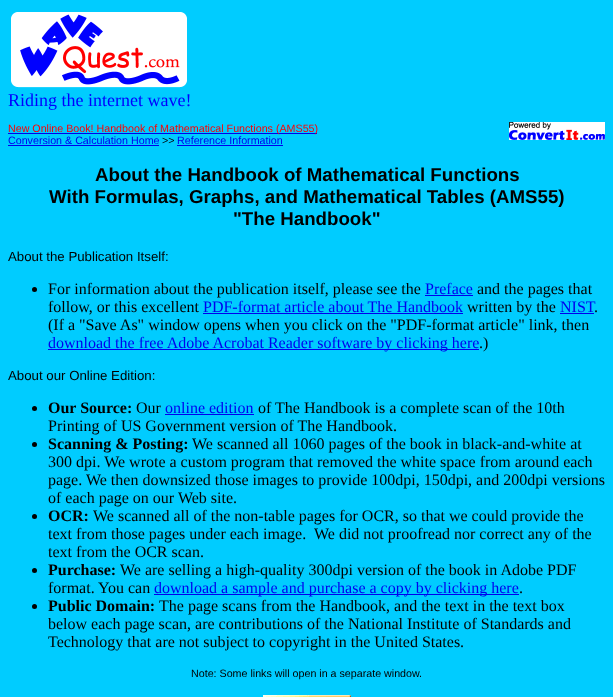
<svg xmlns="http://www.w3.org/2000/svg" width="613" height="697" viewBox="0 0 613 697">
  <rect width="100%" height="100%" fill="#0cf"/>
  <image x="11" y="12" width="176" height="76" href="img/1.png"/>
  <path d="M8 133h309v1H8z" fill="#00e"/>
  <image x="509" y="122" width="96" height="18" href="img/2.png"/>
  <path d="M8 145h151v1H8z" fill="#00e"/>
  <path d="M177 145h106v1H177z" fill="#00e"/>
  <circle cx="34.5" cy="289.5" r="2.5" fill="#000"/>
  <path d="M425 295h48v1H425z" fill="#00e"/>
  <path d="M203 313h260v1H203z" fill="#00e"/>
  <path d="M560 313h34v1H560z" fill="#00e"/>
  <path d="M48 349h431v1H48z" fill="#00e"/>
  <circle cx="34.5" cy="408.5" r="2.5" fill="#000"/>
  <path d="M165 414h89v1H165z" fill="#00e"/>
  <circle cx="34.5" cy="444.5" r="2.5" fill="#000"/>
  <circle cx="34.5" cy="516.5" r="2.5" fill="#000"/>
  <circle cx="34.5" cy="570.5" r="2.5" fill="#000"/>
  <path d="M154 594h365v1H154z" fill="#00e"/>
  <circle cx="34.5" cy="606.5" r="2.5" fill="#000"/>
  <image x="263" y="695" width="88" height="2" href="img/3.png"/>
  <text x="8" y="106" font-family="Liberation Serif" font-size="18" fill="#00f">Riding the internet wave!</text>
  <text x="8" y="132" font-family="Liberation Sans" font-size="10.7" fill="#f00">New Online Book! Handbook of Mathematical Functions (AMS55)</text>
  <text x="8" y="144" font-family="Liberation Sans" font-size="10.7" fill="#00e">Conversion &amp; Calculation Home</text>
  <text x="162" y="144" font-family="Liberation Sans" font-size="10.7" fill="#000">&gt;&gt;</text>
  <text x="177" y="144" font-family="Liberation Sans" font-size="10.7" fill="#00e">Reference Information</text>
  <g font-family="Liberation Sans" font-size="18.7" font-weight="bold" fill="#000">
    <text x="95" y="181">About the Handbook of Mathematical Functions</text>
    <text x="49" y="203">With Formulas, Graphs, and Mathematical Tables (AMS55)</text>
    <text x="233" y="225">"The Handbook"</text>
  </g>
  <text x="8" y="261" font-family="Liberation Sans" font-size="13.25" fill="#000">About the Publication Itself:</text>
  <text x="48" y="294" font-family="Liberation Serif" font-size="16" fill="#000">For information about the publication itself, please see the</text>
  <text x="425" y="294" font-family="Liberation Serif" font-size="16" fill="#00e">Preface</text>
  <g font-family="Liberation Serif" font-size="16" fill="#000">
    <text x="477" y="294">and the pages that</text>
    <text x="48" y="312">follow, or this excellent</text>
  </g>
  <text x="203" y="312" font-family="Liberation Serif" font-size="16" fill="#00e">PDF-format article about The Handbook</text>
  <text x="467" y="312" font-family="Liberation Serif" font-size="16" fill="#000">written by the</text>
  <text x="560" y="312" font-family="Liberation Serif" font-size="16" fill="#00e">NIST</text>
  <g font-family="Liberation Serif" font-size="16" fill="#000">
    <text x="594" y="312">.</text>
    <text x="48" y="330">(If a "Save As" window opens when you click on the "PDF-format article" link, then</text>
  </g>
  <text x="48" y="348" font-family="Liberation Serif" font-size="16" fill="#00e">download the free Adobe Acrobat Reader software by clicking here</text>
  <text x="479" y="348" font-family="Liberation Serif" font-size="16" fill="#000">.)</text>
  <text x="8" y="380" font-family="Liberation Sans" font-size="13.25" fill="#000">About our Online Edition:</text>
  <text x="48" y="413" font-family="Liberation Serif" font-size="16" font-weight="bold" fill="#000">Our Source:</text>
  <text x="136" y="413" font-family="Liberation Serif" font-size="16" fill="#000">Our</text>
  <text x="165" y="413" font-family="Liberation Serif" font-size="16" fill="#00e">online edition</text>
  <g font-family="Liberation Serif" font-size="16" fill="#000">
    <text x="258" y="413">of The Handbook is a complete scan of the 10th</text>
    <text x="48" y="431">Printing of US Government version of The Handbook.</text>
  </g>
  <text x="48" y="449" font-family="Liberation Serif" font-size="16" font-weight="bold" fill="#000">Scanning &amp; Posting:</text>
  <g font-family="Liberation Serif" font-size="16" fill="#000">
    <text x="192" y="449">We scanned all 1060 pages of the book in black-and-white at</text>
    <text x="48" y="467">300 dpi. We wrote a custom program that removed the white space from around each</text>
    <text x="48" y="485">page. We then downsized those images to provide 100dpi, 150dpi, and 200dpi versions</text>
    <text x="48" y="503">of each page on our Web site.</text>
  </g>
  <text x="48" y="521" font-family="Liberation Serif" font-size="16" font-weight="bold" fill="#000">OCR:</text>
  <g font-family="Liberation Serif" font-size="16" fill="#000">
    <text x="93" y="521">We scanned all of the non-table pages for OCR, so that we could provide the</text>
    <text x="48" y="539">text from those pages under each image.</text>
    <text x="314" y="539">We did not proofread nor correct any of the</text>
    <text x="48" y="557">text from the OCR scan.</text>
  </g>
  <text x="48" y="575" font-family="Liberation Serif" font-size="16" font-weight="bold" fill="#000">Purchase:</text>
  <g font-family="Liberation Serif" font-size="16" fill="#000">
    <text x="120" y="575">We are selling a high-quality 300dpi version of the book in Adobe PDF</text>
    <text x="48" y="593">format. You can</text>
  </g>
  <text x="154" y="593" font-family="Liberation Serif" font-size="16" fill="#00e">download a sample and purchase a copy by clicking here</text>
  <text x="519" y="593" font-family="Liberation Serif" font-size="16" fill="#000">.</text>
  <text x="48" y="611" font-family="Liberation Serif" font-size="16" font-weight="bold" fill="#000">Public Domain:</text>
  <g font-family="Liberation Serif" font-size="16" fill="#000">
    <text x="159" y="611">The page scans from the Handbook, and the text in the text box</text>
    <text x="48" y="629">below each page scan, are contributions of the National Institute of Standards and</text>
    <text x="48" y="647">Technology that are not subject to copyright in the United States.</text>
  </g>
  <text x="191" y="677" font-family="Liberation Sans" font-size="10.7" fill="#000">Note: Some links will open in a separate window.</text>
</svg>
